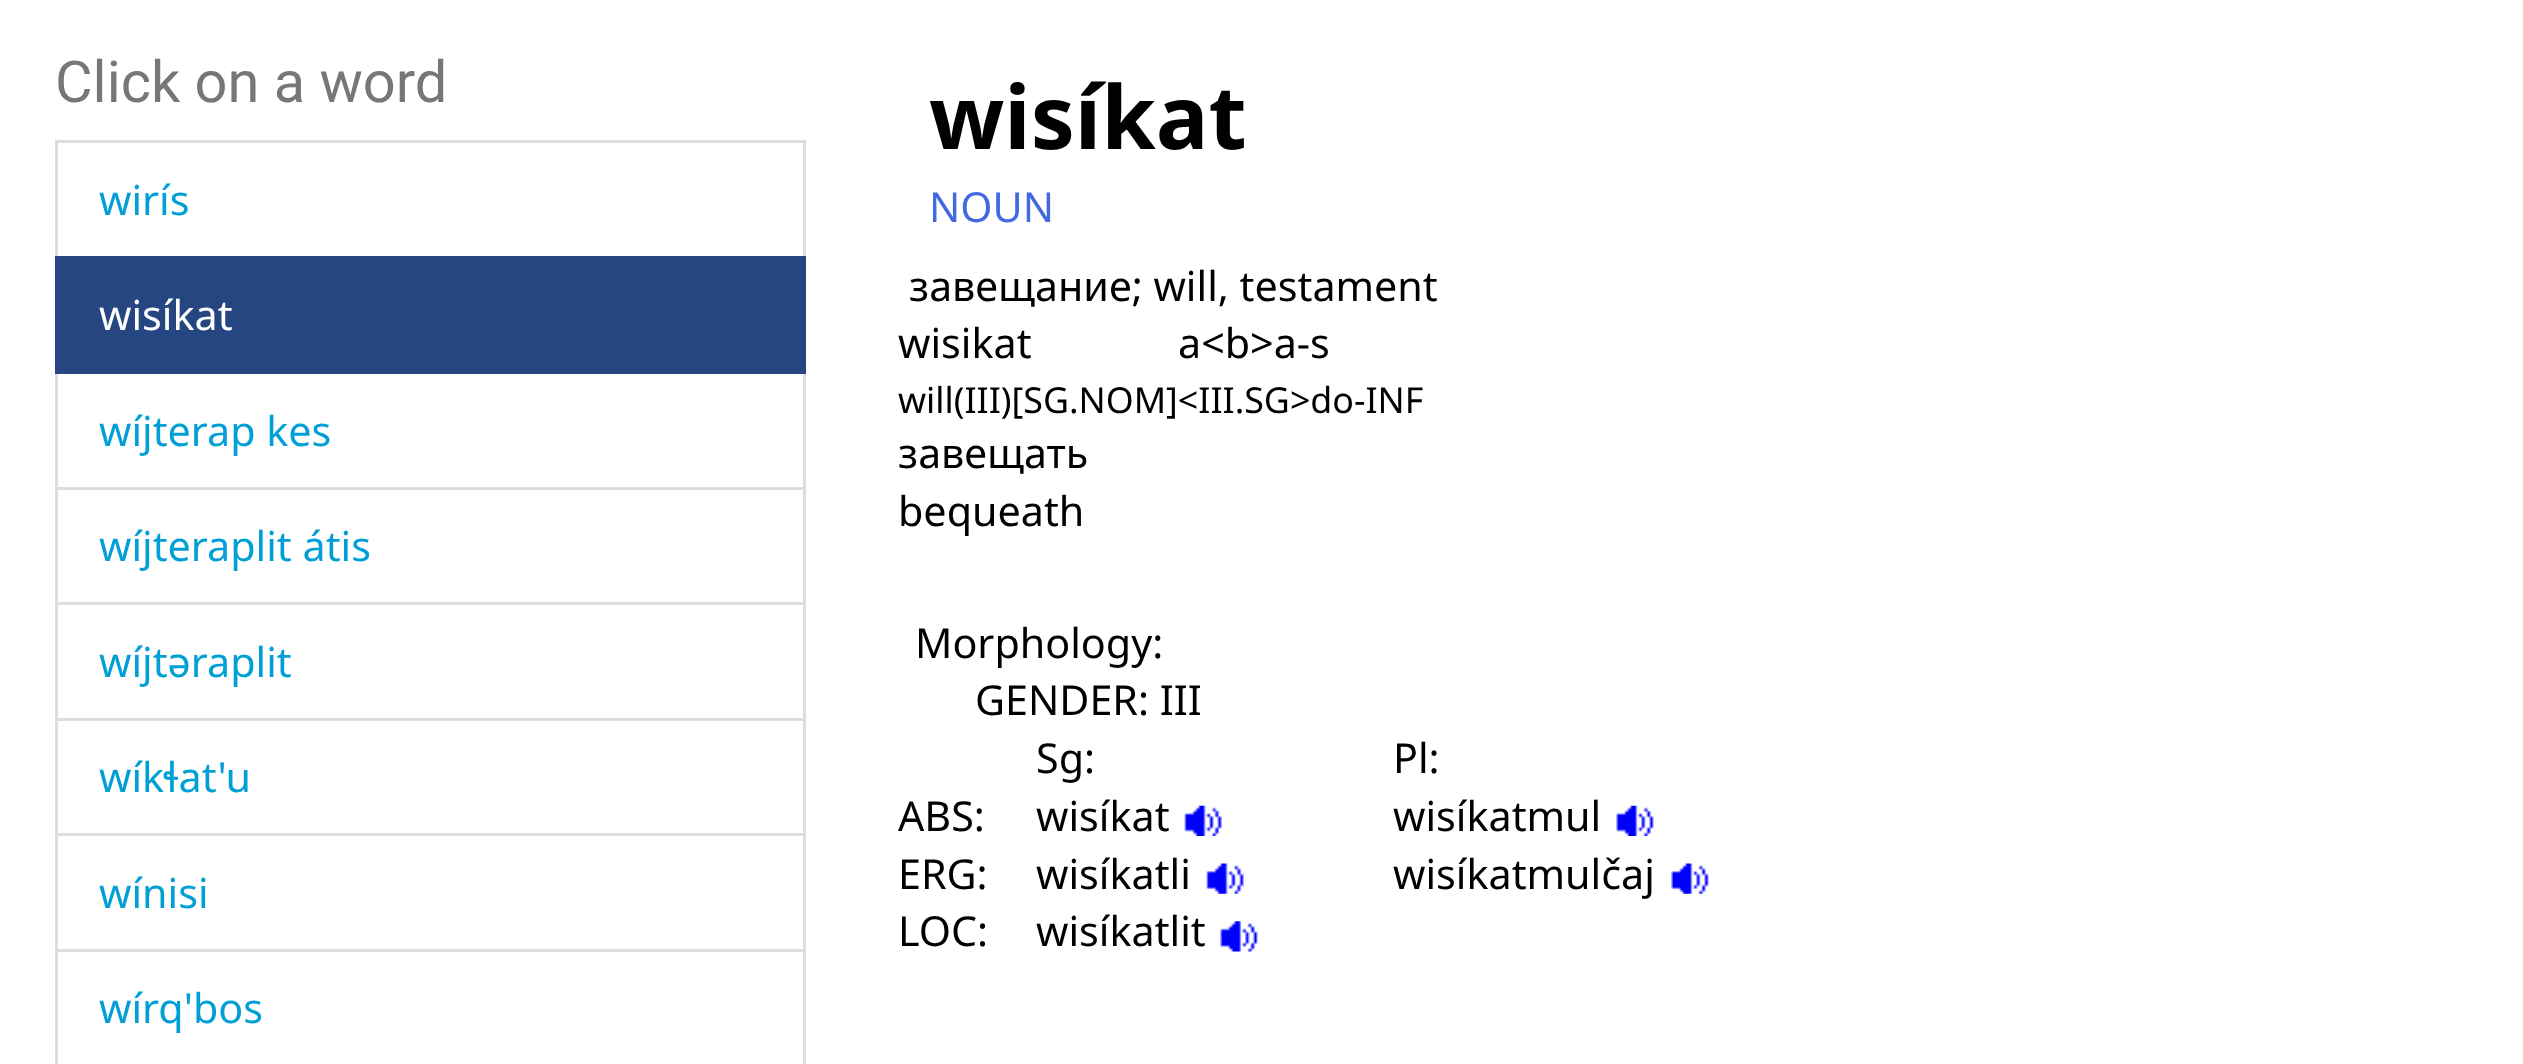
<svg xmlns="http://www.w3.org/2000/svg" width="2523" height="1064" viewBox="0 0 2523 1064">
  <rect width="100%" height="100%" fill="#fff"/>
  <path d="M56.5 141.5h748v116H56.5z" fill="none" stroke="#ddd" stroke-width="3"/>
  <path d="M56.5 372.5h748v116H56.5z" fill="none" stroke="#ddd" stroke-width="3"/>
  <path d="M55 256h751v118H55z" fill="#264681"/>
  <path d="M56.5 488.5h748v115H56.5z" fill="none" stroke="#ddd" stroke-width="3"/>
  <path d="M56.5 603.5h748v116H56.5z" fill="none" stroke="#ddd" stroke-width="3"/>
  <path d="M56.5 719.5h748v115H56.5z" fill="none" stroke="#ddd" stroke-width="3"/>
  <path d="M56.5 834.5h748v116H56.5z" fill="none" stroke="#ddd" stroke-width="3"/>
  <path d="M56.5 950.5h748v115H56.5z" fill="none" stroke="#ddd" stroke-width="3"/>
  <image x="1184" y="805" width="38" height="31" href="img/1.png"/>
  <image x="1616" y="805" width="38" height="31" href="img/2.png"/>
  <image x="1206" y="863" width="38" height="31" href="img/3.png"/>
  <image x="1671" y="863" width="38" height="31" href="img/4.png"/>
  <image x="1220" y="921" width="38" height="31" href="img/5.png"/>
  <text x="55" y="102" font-family="Roboto" font-size="57.75" fill="#777">Click on a word</text>
  <text x="99" y="215" font-family="Noto Sans" font-size="41.25" fill="#009fd6">wirís</text>
  <text x="99" y="330" font-family="Noto Sans" font-size="41.25" fill="#fff">wisíkat</text>
  <g font-family="Noto Sans" font-size="41.25" fill="#009fd6">
    <text x="99" y="446">wíjterap kes</text>
    <text x="99" y="561">wíjteraplit átis</text>
    <text x="99" y="677">wíjtəraplit</text>
    <text x="99" y="792">wíkɬat'u</text>
    <text x="99" y="908">wínisi</text>
    <text x="99" y="1023">wírq'bos</text>
  </g>
  <text x="929" y="149" font-family="Noto Sans" font-size="88" font-weight="bold" fill="#000">wisíkat</text>
  <text x="929" y="222" font-family="Noto Sans" font-size="41.25" fill="#4169e1">NOUN</text>
  <g font-family="Noto Sans" font-size="41.25" fill="#000">
    <text x="909" y="301">завещание; will, testament</text>
    <text x="898" y="358">wisikat</text>
  </g>
  <text x="898" y="413" font-family="Noto Sans" font-size="35.75" fill="#000">will(III)[SG.NOM]&lt;III.SG&gt;do-INF</text>
  <g font-family="Noto Sans" font-size="41.25" fill="#000">
    <text x="1178" y="358">a&lt;b&gt;a-s</text>
    <text x="898" y="468">завещать</text>
    <text x="898" y="526">bequeath</text>
    <text x="915" y="658">Morphology:</text>
    <text x="975" y="715">GENDER: III</text>
    <text x="1036" y="773">Sg:</text>
    <text x="1393" y="773">Pl:</text>
    <text x="898" y="831">ABS:</text>
    <text x="1036" y="831">wisíkat</text>
    <text x="1393" y="831">wisíkatmul</text>
    <text x="898" y="889">ERG:</text>
    <text x="1036" y="889">wisíkatli</text>
    <text x="1393" y="889">wisíkatmulčaj</text>
    <text x="898" y="946">LOC:</text>
    <text x="1036" y="946">wisíkatlit</text>
  </g>
</svg>
